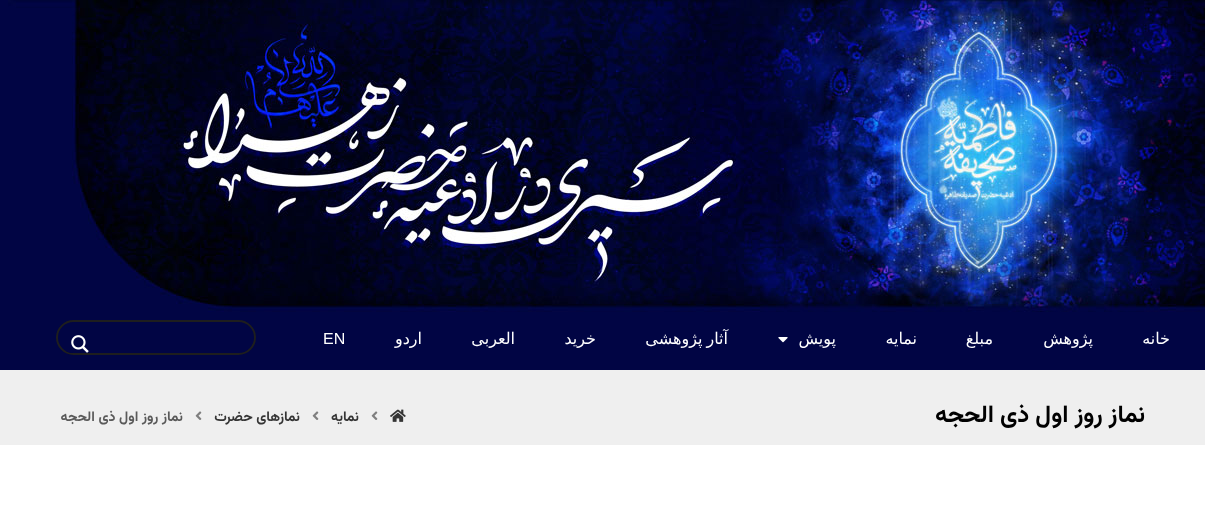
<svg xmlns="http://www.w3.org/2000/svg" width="1205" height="522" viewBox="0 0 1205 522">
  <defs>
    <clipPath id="clip1"><rect x="58" y="322" width="196" height="31" rx="15.5"/></clipPath>
  </defs>
  <rect width="100%" height="100%" fill="#fff"/>
  <image x="0" y="0" width="1205" height="370" href="img/1.png"/>
  <image x="778" y="337" width="10" height="6" href="img/2.png"/>
  <rect x="57" y="321" width="198" height="33" rx="16.5" fill="none" stroke="#1e1e1e" stroke-width="2"/>
  <g clip-path="url(#clip1)">
    <path d="M66 330h28v23H66z" fill="#010544"/>
  </g>
  <image x="71" y="335" width="18" height="18" href="img/3.png"/>
  <path d="M0 370h1205v75H0z" fill="#efefef"/>
  <image x="390" y="409" width="16" height="13" href="img/4.png"/>
  <image x="371" y="411" width="7" height="9" href="img/5.png"/>
  <image x="312" y="411" width="7" height="9" href="img/5.png"/>
  <image x="195" y="411" width="7" height="9" href="img/5.png"/>
  <g font-family="DejaVu Sans" font-size="16" direction="rtl" fill="#fff">
    <text x="1170" y="344">خانه</text>
    <text x="1093" y="344">پژوهش</text>
    <text x="993" y="344">مبلغ</text>
    <text x="917" y="344">نمایه</text>
    <text x="836" y="344">پویش</text>
    <text x="728" y="344" word-spacing="-1">آثار پژوهشی</text>
    <text x="596" y="344">خرید</text>
    <text x="515" y="344">العربی</text>
    <text x="422" y="344">اردو</text>
  </g>
  <text x="323" y="344" font-family="Liberation Sans" font-size="16" fill="#fff">EN</text>
  <text x="1145" y="422" font-family="Vazirmatn" font-size="24" font-weight="bold" direction="rtl" fill="#000">نماز روز اول ذی الحجه</text>
  <g font-family="Vazirmatn" font-size="14" font-weight="bold" direction="rtl" fill="#353535">
    <text x="359" y="421">نمایه</text>
    <text x="300" y="421">نمازهای حضرت</text>
  </g>
  <text x="183" y="421" font-family="Vazirmatn" font-size="14" font-weight="bold" direction="rtl" fill="#5a5a5a">نماز روز اول ذی الحجه</text>
</svg>
